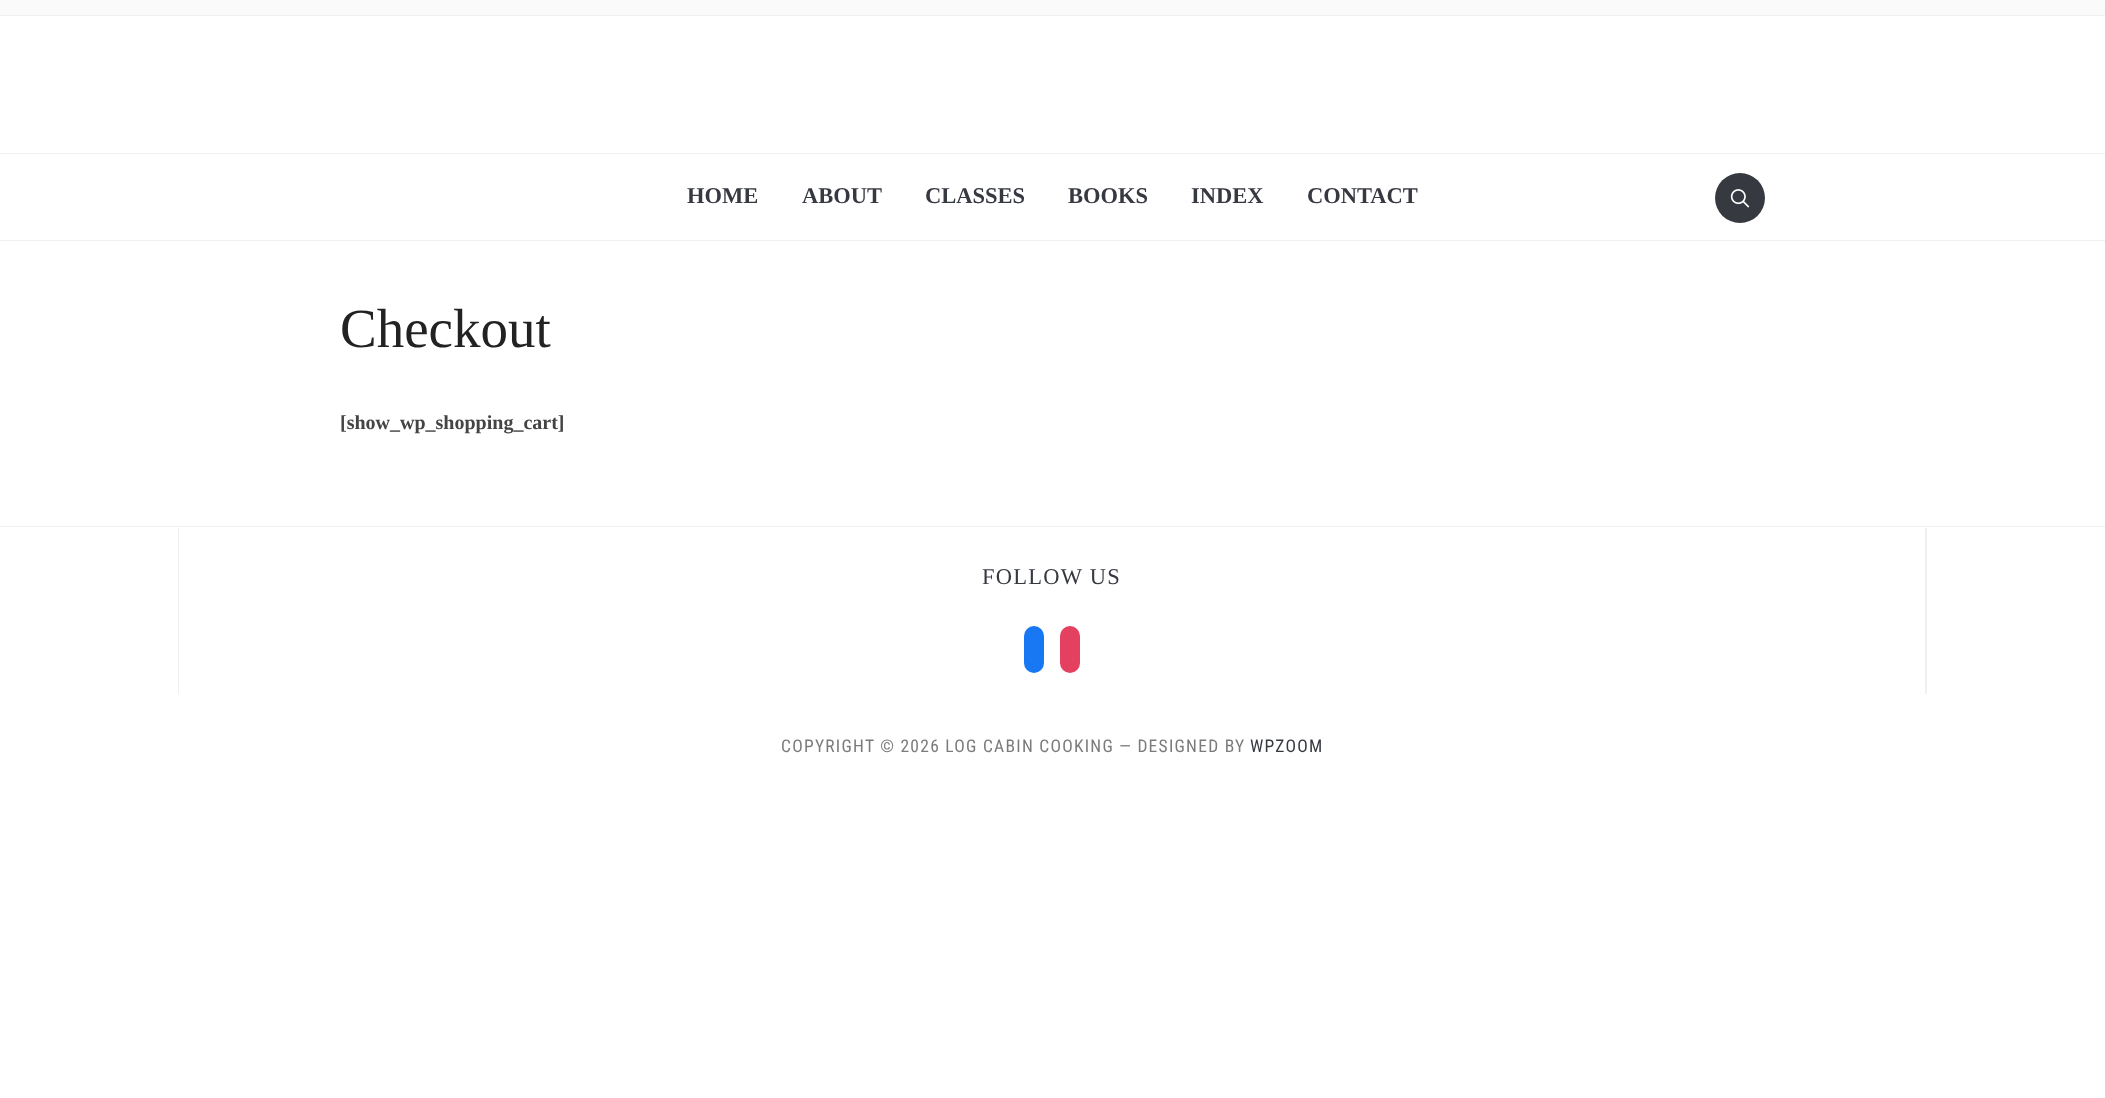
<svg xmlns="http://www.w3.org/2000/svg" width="2105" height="1098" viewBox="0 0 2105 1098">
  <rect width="100%" height="100%" fill="#fff"/>
  <path d="M0 0h2105v15H0z" fill="#fafafa"/>
  <path d="M0 15h2105v1H0z" fill="#f0f0f0"/>
  <path d="M0 153h2105v1H0z" fill="#f0f0f0"/>
  <path d="M0 240h2105v1H0z" fill="#f0f0f0"/>
  <circle cx="1740" cy="198" r="25" fill="#363940"/>
  <image x="1730" y="189" width="20" height="19" href="img/1.png"/>
  <path d="M0 526h2105v1H0z" fill="#f0f0f0"/>
  <path d="M1925 528h2v166H1925z" fill="#f0f0f0"/>
  <path d="M178 528h1v166H178z" fill="#f0f0f0"/>
  <rect x="1024" y="626" width="20" height="47" rx="10" fill="#1877f2"/>
  <rect x="1060" y="626" width="20" height="47" rx="10" fill="#e4405f"/>
  <g font-family="Liberation Serif" font-size="22.5" font-weight="bold" fill="#363940">
    <text x="687" y="203">HOME</text>
    <text x="802" y="203">ABOUT</text>
    <text x="925" y="203">CLASSES</text>
    <text x="1068" y="203">BOOKS</text>
    <text x="1191" y="203">INDEX</text>
    <text x="1307" y="203">CONTACT</text>
  </g>
  <text x="340" y="347" font-family="Liberation Serif" font-size="55" fill="#222">Checkout</text>
  <text x="340" y="429" font-family="Liberation Serif" font-size="20" font-weight="bold" fill="#444">[show_wp_shopping_cart]</text>
  <text x="982" y="584" font-family="Liberation Serif" font-size="22.5" letter-spacing="1.25" fill="#363940">FOLLOW US</text>
  <g font-family="Roboto Condensed" font-size="17.5" letter-spacing="1.25" fill="#7b7b7b">
    <text x="781" y="752">COPYRIGHT © 2026 LOG CABIN COOKING</text>
    <text x="1119" y="752">— DESIGNED BY</text>
  </g>
  <text x="1250" y="752" font-family="Roboto Condensed" font-size="17.5" letter-spacing="1.25" fill="#363940">WPZOOM</text>
</svg>
